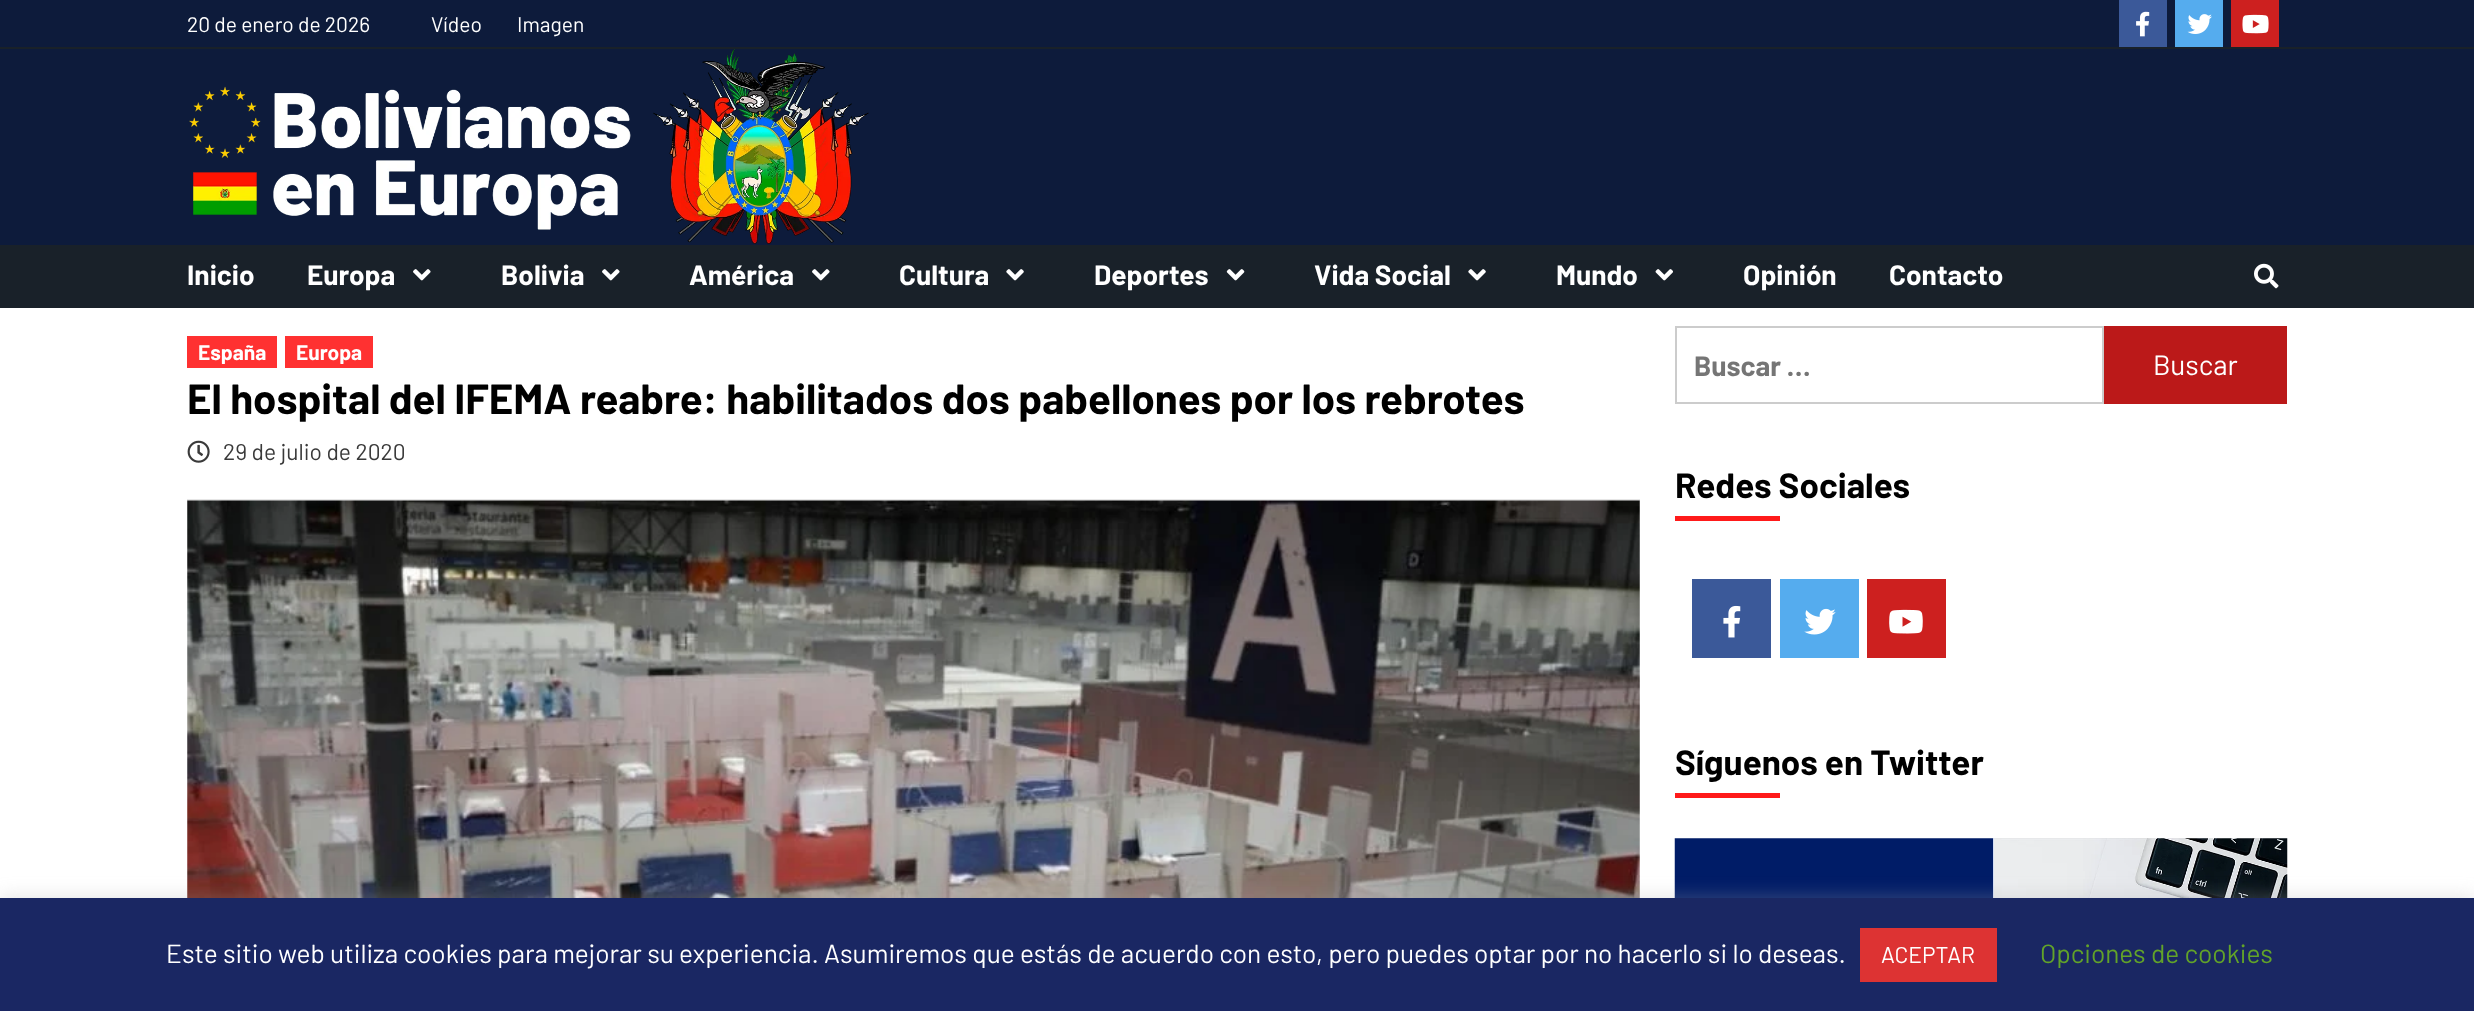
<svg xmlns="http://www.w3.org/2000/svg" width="2474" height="1011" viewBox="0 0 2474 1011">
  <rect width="100%" height="100%" fill="#fff"/>
  <path d="M0 0h2474v47H0z" fill="#0d1b3b"/>
  <path d="M0 47h2474v2H0z" fill="#192129"/>
  <path d="M2119 0h48v47H2119z" fill="#3b5999"/>
  <image x="2136" y="11" width="14" height="26" href="img/1.png"/>
  <path d="M2175 0h48v47H2175z" fill="#55acee"/>
  <image x="2187" y="14" width="25" height="20" href="img/2.png"/>
  <path d="M2231 0h48v47H2231z" fill="#cd201f"/>
  <image x="2242" y="14" width="27" height="20" href="img/3.png"/>
  <path d="M0 49h2474v196H0z" fill="#0d1b3b"/>
  <image x="189" y="49" width="680" height="195" href="img/4.png"/>
  <path d="M0 245h2474v63H0z" fill="#192129"/>
  <image x="413" y="269" width="18" height="12" href="img/5.png"/>
  <image x="602" y="269" width="18" height="12" href="img/5.png"/>
  <image x="812" y="269" width="18" height="12" href="img/5.png"/>
  <image x="1006" y="269" width="18" height="12" href="img/6.png"/>
  <image x="1226" y="269" width="19" height="12" href="img/7.png"/>
  <image x="1468" y="269" width="18" height="12" href="img/6.png"/>
  <image x="1655" y="269" width="18" height="12" href="img/8.png"/>
  <image x="2254" y="263" width="25" height="26" href="img/9.png"/>
  <path d="M187 499h1453v2H187z" fill="#e6e6e6"/>
  <path d="M187 336h90v32H187z" fill="#ff3131"/>
  <path d="M285 336h88v32H285z" fill="#ff3131"/>
  <image x="187" y="440" width="23" height="23" href="img/10.png"/>
  <image x="187" y="500" width="1453" height="398" href="img/11.png"/>
  <path d="M1676 327h427v76H1676z" fill="none" stroke="#ccc" stroke-width="2"/>
  <path d="M2104 326h183v78H2104z" fill="#bb1919"/>
  <path d="M1675 516h105v5H1675z" fill="#ff1a1a"/>
  <path d="M1692 579h79v79H1692z" fill="#3b5999"/>
  <image x="1723" y="605" width="18" height="33" href="img/12.png"/>
  <path d="M1780 579h79v79H1780z" fill="#55acee"/>
  <image x="1804" y="608" width="32" height="27" href="img/13.png"/>
  <path d="M1867 579h79v79H1867z" fill="#cd201f"/>
  <image x="1889" y="609" width="34" height="25" href="img/14.png"/>
  <path d="M1675 793h105v5H1675z" fill="#ff1a1a"/>
  <image x="1674" y="838" width="614" height="60" href="img/15.png"/>
  <path d="M0 896h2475v114H0z" fill="#acabab4d" filter="blur(9px)"/>
  <path d="M0 898h2474v113H0z" fill="#1a2763"/>
  <path d="M1860 928h137v54H1860z" fill="#d33"/>
  <g font-family="Barlow" font-size="21" fill="#fff">
    <text x="187" y="32">20 de enero de 2026</text>
    <text x="431" y="32">Vídeo</text>
    <text x="517" y="32">Imagen</text>
  </g>
  <g font-family="Barlow" font-size="28" font-weight="bold" fill="#fff">
    <text x="187" y="285">Inicio</text>
    <text x="307" y="285">Europa</text>
    <text x="501" y="285">Bolivia</text>
    <text x="689" y="285">América</text>
    <text x="899" y="285">Cultura</text>
    <text x="1094" y="285">Deportes</text>
    <text x="1314" y="285">Vida Social</text>
    <text x="1556" y="285">Mundo</text>
    <text x="1743" y="285">Opinión</text>
    <text x="1889" y="285">Contacto</text>
  </g>
  <g font-family="Barlow" font-size="21" font-weight="bold" fill="#fff">
    <text x="198" y="360">España</text>
    <text x="296" y="360">Europa</text>
  </g>
  <text x="187" y="414" font-family="Barlow" font-size="42" font-weight="bold" fill="#000">El hospital del IFEMA reabre: habilitados dos pabellones por los rebrotes</text>
  <text x="223" y="460" font-family="Barlow" font-size="22.75" fill="#3a3a3a">29 de julio de 2020</text>
  <text x="1694" y="376" font-family="Barlow" font-size="28" font-weight="bold" fill="#757575">Buscar …</text>
  <text x="2153" y="375" font-family="Barlow" font-size="28" fill="#fff">Buscar</text>
  <g font-family="Barlow" font-size="35" font-weight="bold" fill="#000">
    <text x="1675" y="498">Redes Sociales</text>
    <text x="1675" y="775">Síguenos en Twitter</text>
  </g>
  <text x="166" y="963" font-family="Barlow" font-size="26.25" fill="#fff">Este sitio web utiliza cookies para mejorar su experiencia. Asumiremos que estás de acuerdo con esto, pero puedes optar por no hacerlo si lo deseas.</text>
  <text x="1881" y="963" font-family="Barlow" font-size="22.75" fill="#fff">ACEPTAR</text>
  <text x="2040" y="963" font-family="Barlow" font-size="26.25" fill="#62a329">Opciones de cookies</text>
</svg>
